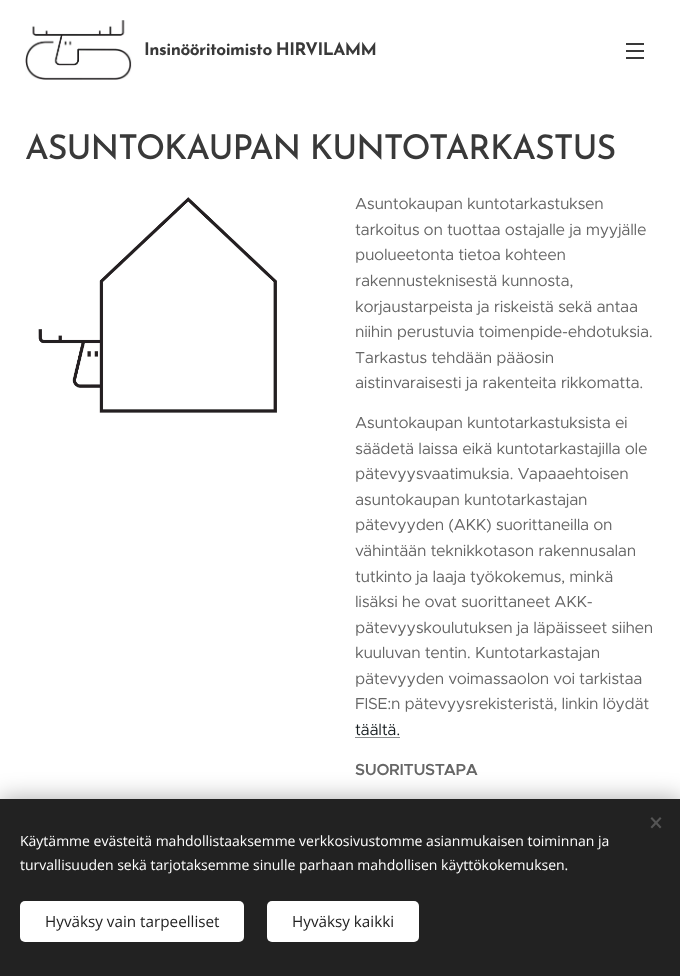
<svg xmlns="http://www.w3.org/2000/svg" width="680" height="976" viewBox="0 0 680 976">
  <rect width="100%" height="100%" fill="#fff"/>
  <image x="25" y="20" width="107" height="60" href="img/1.png"/>
  <path d="M626 50h18v2H626z" fill="#393939"/>
  <path d="M626 43h18v2H626z" fill="#393939"/>
  <path d="M626 57h18v2H626z" fill="#393939"/>
  <image x="38" y="197" width="239" height="216" href="img/2.png"/>
  <path d="M355 737h45v1H355z" fill="#8a8d8f"/>
  <path d="M0 799h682v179H0z" fill="#00000054" filter="blur(12.5px)"/>
  <path d="M0 799h680v177H0z" fill="#222"/>
  <path d="M650.5 827L660 817L661.5 818.5L652 828.5Z" fill="#555"/>
  <path d="M652 817L661.5 827L660 828.5L650.5 818.5Z" fill="#555"/>
  <rect x="20" y="901" width="224" height="41" rx="5" fill="#fff"/>
  <rect x="267" y="901" width="152" height="41" rx="5" fill="#fff"/>
  <text x="144" y="55" word-spacing="-1" font-family="Josefin Sans" font-size="17.25" font-weight="bold" letter-spacing="-0.5" fill="#393939">Insinööritoimisto HIRVILAMM</text>
  <text x="25" y="159" font-family="Josefin Sans" font-size="34" font-weight="500" letter-spacing="-1" fill="#393939">ASUNTOKAUPAN KUNTOTARKASTUS</text>
  <g font-family="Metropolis" font-size="16" letter-spacing="-0.3" fill="#666">
    <text x="355" y="209">Asuntokaupan kuntotarkastuksen</text>
    <text x="355" y="235">tarkoitus on tuottaa ostajalle ja myyjälle</text>
    <text x="355" y="260">puolueetonta tietoa kohteen</text>
    <text x="355" y="286">rakennusteknisestä kunnosta,</text>
    <text x="355" y="312">korjaustarpeista ja riskeistä sekä antaa</text>
    <text x="355" y="337">niihin perustuvia toimenpide-ehdotuksia.</text>
    <text x="355" y="363">Tarkastus tehdään pääosin</text>
    <text x="355" y="388">aistinvaraisesti ja rakenteita rikkomatta.</text>
    <text x="355" y="428">Asuntokaupan kuntotarkastuksista ei</text>
    <text x="355" y="454">säädetä laissa eikä kuntotarkastajilla ole</text>
    <text x="355" y="479">pätevyysvaatimuksia. Vapaaehtoisen</text>
    <text x="355" y="505">asuntokaupan kuntotarkastajan</text>
    <text x="355" y="530">pätevyyden (AKK) suorittaneilla on</text>
    <text x="355" y="556">vähintään teknikkotason rakennusalan</text>
    <text x="355" y="582">tutkinto ja laaja työkokemus, minkä</text>
    <text x="355" y="607">lisäksi he ovat suorittaneet AKK-</text>
    <text x="355" y="633">pätevyyskoulutuksen ja läpäisseet siihen</text>
    <text x="355" y="658">kuuluvan tentin. Kuntotarkastajan</text>
    <text x="355" y="684">pätevyyden voimassaolon voi tarkistaa</text>
    <text x="355" y="709">FISE:n pätevyysrekisteristä, linkin löydät</text>
  </g>
  <text x="355" y="735" font-family="Metropolis" font-size="16" letter-spacing="-0.3" fill="#141b1e">täältä.</text>
  <text x="355" y="775" font-family="Metropolis" font-size="16" font-weight="600" letter-spacing="-0.3" fill="#666">SUORITUSTAPA</text>
  <g font-family="Open Sans" font-size="14" fill="#fff">
    <text x="20" y="846">Käytämme evästeitä mahdollistaaksemme verkkosivustomme asianmukaisen toiminnan ja</text>
    <text x="20" y="870">turvallisuuden sekä tarjotaksemme sinulle parhaan mahdollisen käyttökokemuksen.</text>
  </g>
  <g font-family="Open Sans" font-size="15.25" fill="#222">
    <text x="45" y="927">Hyväksy vain tarpeelliset</text>
    <text x="292" y="927">Hyväksy kaikki</text>
  </g>
</svg>
